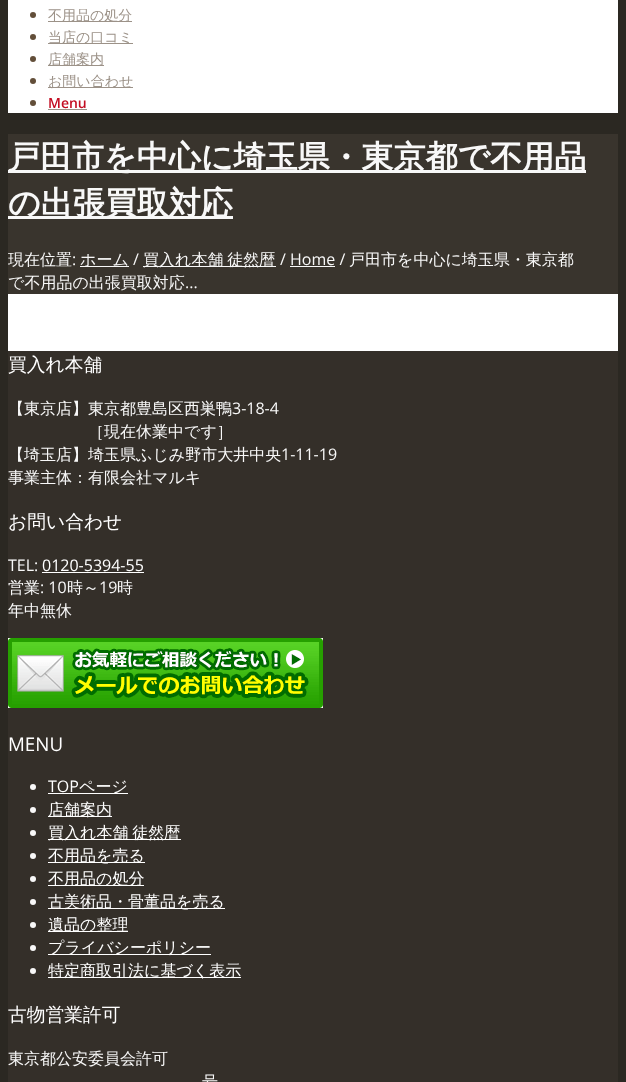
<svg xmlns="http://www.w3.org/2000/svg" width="626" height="1082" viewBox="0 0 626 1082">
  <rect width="100%" height="100%" fill="#2b2822"/>
  <path d="M8 0h610v113H8z" fill="#fff"/>
  <circle cx="33" cy="15" r="3" fill="#624e39"/>
  <path d="M48 21h84v1H48z" fill="#9c9288"/>
  <circle cx="33" cy="37" r="3" fill="#624e39"/>
  <path d="M48 43h85v1H48z" fill="#9c9288"/>
  <circle cx="33" cy="59" r="3" fill="#624e39"/>
  <path d="M48 65h56v1H48z" fill="#9c9288"/>
  <circle cx="33" cy="81" r="3" fill="#624e39"/>
  <path d="M48 87h85v1H48z" fill="#9c9288"/>
  <circle cx="33" cy="103" r="3" fill="#624e39"/>
  <path d="M48 109h39v1H48z" fill="#9c9288"/>
  <path d="M8 294h610v57H8z" fill="#fff"/>
  <path d="M8 134h610v160H8z" fill="#39342d"/>
  <path d="M8 170h578v3H8z" fill="#f8f8f8"/>
  <path d="M8 216h225v3H8z" fill="#f8f8f8"/>
  <path d="M80 266h49v1H80z" fill="#f8f8f8"/>
  <path d="M143 266h133v1H143z" fill="#f8f8f8"/>
  <path d="M290 266h45v1H290z" fill="#f8f8f8"/>
  <path d="M8 351h610v731H8z" fill="#342f29"/>
  <path d="M42 572h102v1H42z" fill="#fff"/>
  <image x="8" y="638" width="315" height="70" href="img/1.png"/>
  <circle cx="33" cy="787" r="3" fill="#f8f8f8"/>
  <path d="M48 793h80v1H48z" fill="#fff"/>
  <circle cx="33" cy="810" r="3" fill="#f8f8f8"/>
  <path d="M48 816h64v1H48z" fill="#fff"/>
  <circle cx="33" cy="833" r="3" fill="#f8f8f8"/>
  <path d="M48 839h133v1H48z" fill="#fff"/>
  <circle cx="33" cy="856" r="3" fill="#f8f8f8"/>
  <path d="M48 862h97v1H48z" fill="#fff"/>
  <circle cx="33" cy="879" r="3" fill="#f8f8f8"/>
  <path d="M48 885h96v1H48z" fill="#fff"/>
  <circle cx="33" cy="902" r="3" fill="#f8f8f8"/>
  <path d="M48 908h177v1H48z" fill="#fff"/>
  <circle cx="33" cy="925" r="3" fill="#f8f8f8"/>
  <path d="M48 931h80v1H48z" fill="#fff"/>
  <circle cx="33" cy="948" r="3" fill="#f8f8f8"/>
  <path d="M48 954h163v1H48z" fill="#fff"/>
  <circle cx="33" cy="971" r="3" fill="#f8f8f8"/>
  <path d="M48 977h193v1H48z" fill="#fff"/>
  <g font-family="WenQuanYi Zen Hei" font-size="14" font-weight="500" fill="#9c9288">
    <text x="48" y="20">不用品の処分</text>
    <text x="48" y="42">当店の口コミ</text>
    <text x="48" y="64">店舗案内</text>
    <text x="48" y="86">お問い合わせ</text>
  </g>
  <text x="48" y="108" font-family="Open Sans" font-size="14" font-weight="600" fill="#c30d22">Menu</text>
  <g font-family="WenQuanYi Zen Hei" font-size="32" font-weight="bold" fill="#f8f8f8">
    <text x="8" y="168">戸田市を中心に埼玉県・東京都で不用品</text>
    <text x="8" y="214">の出張買取対応</text>
  </g>
  <text x="8" y="265" font-family="WenQuanYi Zen Hei" font-size="16" font-weight="500" fill="#f8f8f8">現在位置</text>
  <text x="72" y="265" font-family="Open Sans" font-size="16" fill="#f8f8f8">:</text>
  <text x="80" y="265" font-family="WenQuanYi Zen Hei" font-size="16" font-weight="500" fill="#f8f8f8">ホーム</text>
  <text x="133" y="265" font-family="Open Sans" font-size="16" fill="#f8f8f8">/</text>
  <text x="143" y="265" word-spacing="-1" font-family="WenQuanYi Zen Hei" font-size="16" font-weight="500" fill="#f8f8f8">買入れ本舗 徒然暦</text>
  <text x="280" y="265" font-family="Open Sans" font-size="16" fill="#f8f8f8">/ Home /</text>
  <g font-family="WenQuanYi Zen Hei" font-size="16" font-weight="500" fill="#f8f8f8">
    <text x="349" y="265">戸田市を中心に埼玉県・東京都</text>
    <text x="8" y="288">で不用品の出張買取対応</text>
  </g>
  <text x="185" y="288" font-family="Open Sans" font-size="16" fill="#f8f8f8">...</text>
  <text x="8" y="371" font-family="WenQuanYi Zen Hei" font-size="18.75" font-weight="500" fill="#fff">買入れ本舗</text>
  <text x="8" y="414" font-family="WenQuanYi Zen Hei" font-size="16" font-weight="500" fill="#f8f8f8">【東京店】東京都豊島区西巣鴨</text>
  <text x="232" y="414" font-family="Open Sans" font-size="16" fill="#f8f8f8">3-18-4</text>
  <g font-family="WenQuanYi Zen Hei" font-size="16" font-weight="500" fill="#f8f8f8">
    <text x="88" y="437">［現在休業中です］</text>
    <text x="8" y="460">【埼玉店】埼玉県ふじみ野市大井中央</text>
  </g>
  <text x="281" y="460" font-family="Open Sans" font-size="16" fill="#f8f8f8">1-11-19</text>
  <text x="8" y="483" font-family="WenQuanYi Zen Hei" font-size="16" font-weight="500" fill="#f8f8f8">事業主体：有限会社マルキ</text>
  <text x="8" y="528" font-family="WenQuanYi Zen Hei" font-size="18.75" font-weight="500" fill="#fff">お問い合わせ</text>
  <text x="8" y="571" font-family="Open Sans" font-size="16" fill="#f8f8f8">TEL:</text>
  <text x="42" y="571" font-family="Open Sans" font-size="16" fill="#fff">0120-5394-55</text>
  <text x="8" y="593" font-family="WenQuanYi Zen Hei" font-size="16" font-weight="500" fill="#f8f8f8">営業</text>
  <text x="40" y="593" font-family="Open Sans" font-size="16" fill="#f8f8f8">: 10</text>
  <text x="67" y="593" font-family="WenQuanYi Zen Hei" font-size="16" font-weight="500" fill="#f8f8f8">時～</text>
  <text x="99" y="593" font-family="Open Sans" font-size="16" fill="#f8f8f8">19</text>
  <g font-family="WenQuanYi Zen Hei" font-size="16" font-weight="500" fill="#f8f8f8">
    <text x="117" y="593">時</text>
    <text x="8" y="616">年中無休</text>
  </g>
  <text x="8" y="751" font-family="Open Sans" font-size="18.75" fill="#fff">MENU</text>
  <text x="48" y="792" font-family="Open Sans" font-size="16" fill="#fff">TOP</text>
  <g font-family="WenQuanYi Zen Hei" font-size="16" font-weight="500" fill="#fff">
    <text x="79" y="792">ページ</text>
    <text x="48" y="815">店舗案内</text>
    <text x="48" y="838" word-spacing="-1">買入れ本舗 徒然暦</text>
    <text x="48" y="861">不用品を売る</text>
    <text x="48" y="884">不用品の処分</text>
    <text x="48" y="907">古美術品・骨董品を売る</text>
    <text x="48" y="930">遺品の整理</text>
    <text x="48" y="953">プライバシーポリシー</text>
    <text x="48" y="976">特定商取引法に基づく表示</text>
  </g>
  <text x="8" y="1021" font-family="WenQuanYi Zen Hei" font-size="18.75" font-weight="500" fill="#fff">古物営業許可</text>
  <g font-family="WenQuanYi Zen Hei" font-size="16" font-weight="500" fill="#f8f8f8">
    <text x="8" y="1064">東京都公安委員会許可</text>
    <text x="202" y="1087">号</text>
  </g>
</svg>
